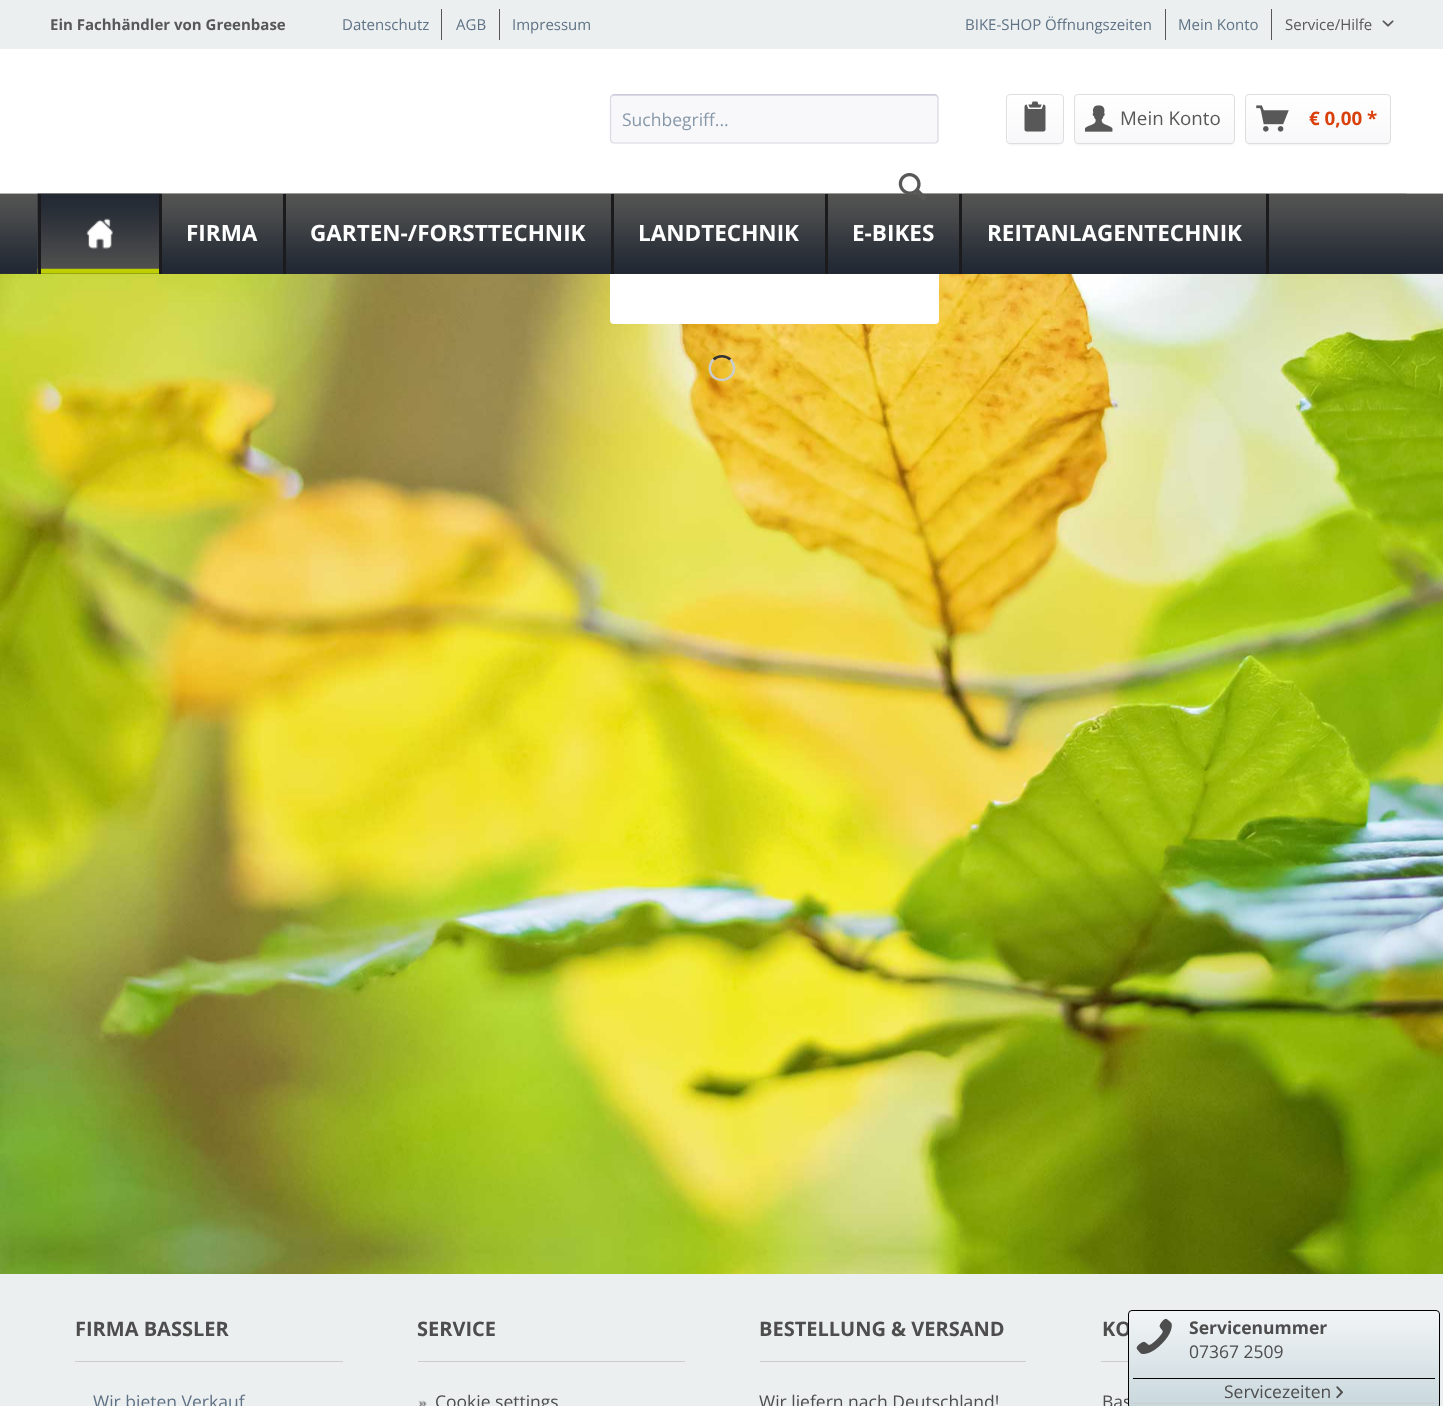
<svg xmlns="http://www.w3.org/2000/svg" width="1443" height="1406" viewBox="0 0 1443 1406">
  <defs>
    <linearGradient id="g1" gradientUnits="userSpaceOnUse" x1="1035" y1="95" x2="1035" y2="143"><stop offset="0" stop-color="#fff"/><stop offset="1" stop-color="#f8f8fa"/></linearGradient>
    <linearGradient id="g2" gradientUnits="userSpaceOnUse" x1="1154" y1="95" x2="1154" y2="143"><stop offset="0" stop-color="#fff"/><stop offset="1" stop-color="#f8f8fa"/></linearGradient>
    <linearGradient id="g3" gradientUnits="userSpaceOnUse" x1="1318" y1="95" x2="1318" y2="143"><stop offset="0" stop-color="#fff"/><stop offset="1" stop-color="#f8f8fa"/></linearGradient>
    <clipPath id="clip1"><rect x="1128" y="1310" width="312" height="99" rx="4"/></clipPath>
    <linearGradient id="g4" gradientUnits="userSpaceOnUse" x1="1284" y1="1311" x2="1284" y2="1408"><stop offset="0" stop-color="#f2f5f6"/><stop offset="0.37" stop-color="#e3eaed"/><stop offset="1" stop-color="#c8d7dc"/></linearGradient>
  </defs>
  <rect width="100%" height="100%" fill="#fff"/>
  <image x="0" y="273" width="1443" height="1001" href="img/1.png"/>
  <path d="M0 0h1443v49H0z" fill="#ebeff0"/>
  <path d="M441 9h1v31H441z" fill="#585858"/>
  <path d="M499 9h1v31H499z" fill="#585858"/>
  <path d="M1165 9h1v31H1165z" fill="#585858"/>
  <path d="M1271 9h1v31H1271z" fill="#585858"/>
  <image x="1382" y="20" width="12" height="7" href="img/2.png"/>
  <rect x="610" y="49" width="329" height="275" rx="4" fill="#fff"/>
  <rect x="610" y="94" width="329" height="50" rx="4" fill="#f8f8fa"/>
  <path d="M614 96H935C936 96 938 97 938 99V98C938 96 937 95 936 95H614C612 95 611 96 611 98V99C611 97 612 96 614 96Z" fill="#dadae5"/>
  <path d="M611.5 95.5L614 94.5H935L937 95.5" fill="none" stroke="#cbcbdb" stroke-width="1.2"/>
  <path d="M937 95.5L938 97.5V140L937 142L935 143H614L611.5 142L610.5 140V97.5L611.5 95.5" fill="none" stroke="#dadae5" stroke-width="1.2"/>
  <image x="0" y="193" width="1443" height="81" href="img/7.png"/>
  <image x="0" y="193" width="1443" height="81" href="img/8.png"/>
  <image x="37" y="193" width="1370" height="81" href="img/9.png"/>
  <image x="898" y="173" width="28" height="27" href="img/3.png"/>
  <rect x="1009" y="100" width="52" height="45" rx="1" fill="#f0f0f0" filter="blur(1px)"/>
  <rect x="1008" y="95" width="55" height="48" rx="2.5" fill="url(#g1)"/>
  <rect x="1006.5" y="94.5" width="57" height="49" rx="3.5" fill="none" stroke="#dededc"/>
  <image x="1024" y="101" width="22" height="31" href="img/4.png"/>
  <rect x="1076" y="100" width="157" height="45" rx="1" fill="#f0f0f0" filter="blur(1px)"/>
  <rect x="1075" y="95" width="159" height="48" rx="2.5" fill="url(#g2)"/>
  <rect x="1074.5" y="94.5" width="160" height="49" rx="3.5" fill="none" stroke="#dededc"/>
  <image x="1085" y="105" width="28" height="27" href="img/5.png"/>
  <rect x="1248" y="100" width="141" height="45" rx="1" fill="#f0f0f0" filter="blur(1px)"/>
  <rect x="1246" y="95" width="144" height="48" rx="2.5" fill="url(#g3)"/>
  <rect x="1245.5" y="94.5" width="145" height="49" rx="3.5" fill="none" stroke="#dededc"/>
  <image x="1256" y="105" width="33" height="27" href="img/6.png"/>
  <image x="37" y="193" width="125" height="81" href="img/10.png"/>
  <path d="M159 194h3v80H159z" fill="#1b1b1d"/>
  <path d="M38 194h3v80H38z" fill="#1b1b1d"/>
  <image x="86" y="218" width="27" height="31" href="img/11.png"/>
  <path d="M283 194h3v80H283z" fill="#1b1b1d"/>
  <path d="M611 194h3v80H611z" fill="#1b1b1d"/>
  <path d="M825 194h3v80H825z" fill="#1b1b1d"/>
  <path d="M959 194h3v80H959z" fill="#1b1b1d"/>
  <path d="M1266 194h3v80H1266z" fill="#1b1b1d"/>
  <path d="M713.5 359.5C718 355 725.5 355 730.5 359.5" fill="none" stroke="#333" stroke-width="2.5"/>
  <path d="M730.5 359.5C732.5 362 734 365 734 368C734 382.5 713 384.5 710 370.5C709.5 366.5 710.5 362.5 713.5 359.5" fill="none" stroke="#ccc" stroke-width="2.5"/>
  <path d="M0 1274h1443v132H0z" fill="#eceff0"/>
  <path d="M75 1361h268v1H75z" fill="#cdcdcd"/>
  <path d="M418 1361h267v1H418z" fill="#cdcdcd"/>
  <image x="418" y="1400" width="9" height="6" href="img/12.png"/>
  <path d="M760 1361h266v1H760z" fill="#cdcdcd"/>
  <path d="M1101 1361h27v1H1101z" fill="#cdcdcd"/>
  <text x="50" y="30" font-family="Open Sans" font-size="15" font-weight="bold" fill="#585858">Ein Fachhändler von Greenbase</text>
  <g font-family="Open Sans" font-size="15" fill="#5f7285">
    <text x="342" y="30">Datenschutz</text>
    <text x="456" y="30">AGB</text>
    <text x="512" y="30">Impressum</text>
    <text x="965" y="30">BIKE-SHOP Öffnungszeiten</text>
    <text x="1178" y="30">Mein Konto</text>
  </g>
  <text x="1285" y="30" font-family="Open Sans" font-size="15" fill="#585858">Service/Hilfe</text>
  <text x="622" y="126" font-family="Open Sans" font-size="17.5" fill="#8798a9">Suchbegriff...</text>
  <text x="1120" y="125" font-family="Open Sans" font-size="18.75" fill="#585858">Mein Konto</text>
  <text x="1309" y="125" font-family="Open Sans" font-size="18.75" font-weight="bold" fill="#d9400b">€ 0,00 *</text>
  <g font-family="Open Sans" font-size="22.5" font-weight="bold" fill="#fff">
    <text x="186" y="241">FIRMA</text>
    <text x="310" y="241">GARTEN-/FORSTTECHNIK</text>
    <text x="638" y="241">LANDTECHNIK</text>
    <text x="852" y="241">E-BIKES</text>
    <text x="987" y="241">REITANLAGENTECHNIK</text>
  </g>
  <text x="75" y="1336" font-family="Open Sans" font-size="20" font-weight="bold" fill="#4d4d4d">FIRMA BASSLER</text>
  <text x="93" y="1408" font-family="Open Sans" font-size="17.5" fill="#5f7285">Wir bieten Verkauf,</text>
  <text x="417" y="1336" font-family="Open Sans" font-size="20" font-weight="bold" fill="#4d4d4d">SERVICE</text>
  <text x="435" y="1408" font-family="Open Sans" font-size="17.5" fill="#4d4d4d">Cookie settings</text>
  <text x="759" y="1336" font-family="Open Sans" font-size="20" font-weight="bold" fill="#4d4d4d">BESTELLUNG &amp; VERSAND</text>
  <text x="759" y="1408" font-family="Open Sans" font-size="17.5" fill="#4d4d4d">Wir liefern nach Deutschland!</text>
  <text x="1102" y="1336" font-family="Open Sans" font-size="20" font-weight="bold" fill="#4d4d4d">KO</text>
  <text x="1102" y="1408" font-family="Open Sans" font-size="17.5" fill="#4d4d4d">Bas</text>
  <g clip-path="url(#clip1)">
    <path d="M1128 1311h312v95H1128z" fill="url(#g4)"/>
  </g>
  <rect x="1128.5" y="1310.5" width="311" height="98" rx="3.5" fill="none" stroke="#000"/>
  <image x="1136" y="1318" width="36" height="36" href="img/13.png"/>
  <text x="1189" y="1334" font-family="Open Sans" font-size="17.5" font-weight="bold" fill="#4d4d4d">Servicenummer</text>
  <text x="1189" y="1358" font-family="Open Sans" font-size="17.5" fill="#4d4d4d">07367 2509</text>
  <path d="M1133 1378h302v1H1133z" fill="#000"/>
  <path d="M1133 1403h302v1H1133z" fill="#cdcdcd"/>
  <text x="1224" y="1398" font-family="Open Sans" font-size="17.5" fill="#4d4d4d">Servicezeiten</text>
  <image x="1336" y="1386" width="7" height="13" href="img/14.png"/>
</svg>
